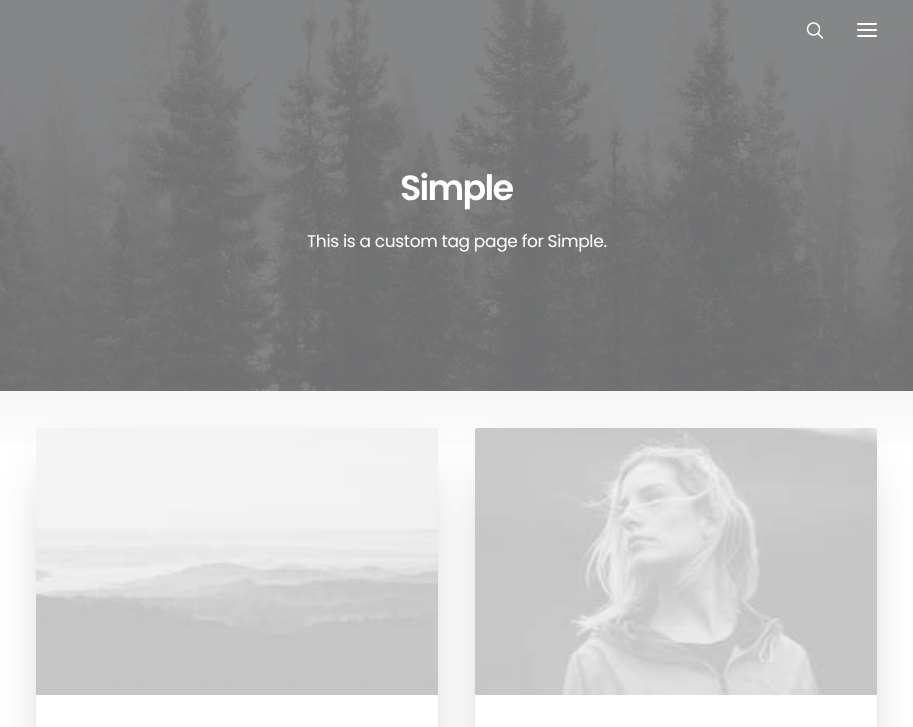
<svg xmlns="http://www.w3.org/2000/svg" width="913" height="727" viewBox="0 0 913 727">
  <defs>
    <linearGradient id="g1" gradientUnits="userSpaceOnUse" x1="457" y1="466" x2="457" y2="391"><stop offset="0" stop-color="#f7f7f7" stop-opacity="0"/><stop offset="1" stop-color="#f7f7f7"/></linearGradient>
  </defs>
  <rect width="100%" height="100%" fill="#fff"/>
  <image x="0" y="0" width="913" height="392" href="img/2.png"/>
  <image x="806" y="22" width="18" height="17" href="img/1.png"/>
  <rect x="857" y="29" width="20" height="2" rx="1" fill="#fff"/>
  <rect x="857" y="23" width="20" height="2" rx="1" fill="#fff"/>
  <rect x="857" y="35" width="20" height="2" rx="1" fill="#fff"/>
  <path d="M0 391h913v52H0z" fill="url(#g1)"/>
  <path d="M66 478h342v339H66z" fill="#00000073" filter="blur(30px)"/>
  <rect x="36" y="428" width="402" height="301" rx="2" fill="#fff"/>
  <image x="36" y="428" width="402" height="267" href="img/3.png"/>
  <path d="M505 478h342v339H505z" fill="#00000073" filter="blur(30px)"/>
  <rect x="475" y="428" width="402" height="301" rx="2" fill="#fff"/>
  <image x="475" y="428" width="402" height="267" href="img/4.png"/>
  <text x="400" y="200" font-family="Poppins" font-size="35" font-weight="600" letter-spacing="-1.75" fill="#fff">Simple</text>
  <text x="307" y="247" font-family="Poppins" font-size="17" letter-spacing="-0.35" fill="#fff">This is a custom tag page for Simple.</text>
</svg>
